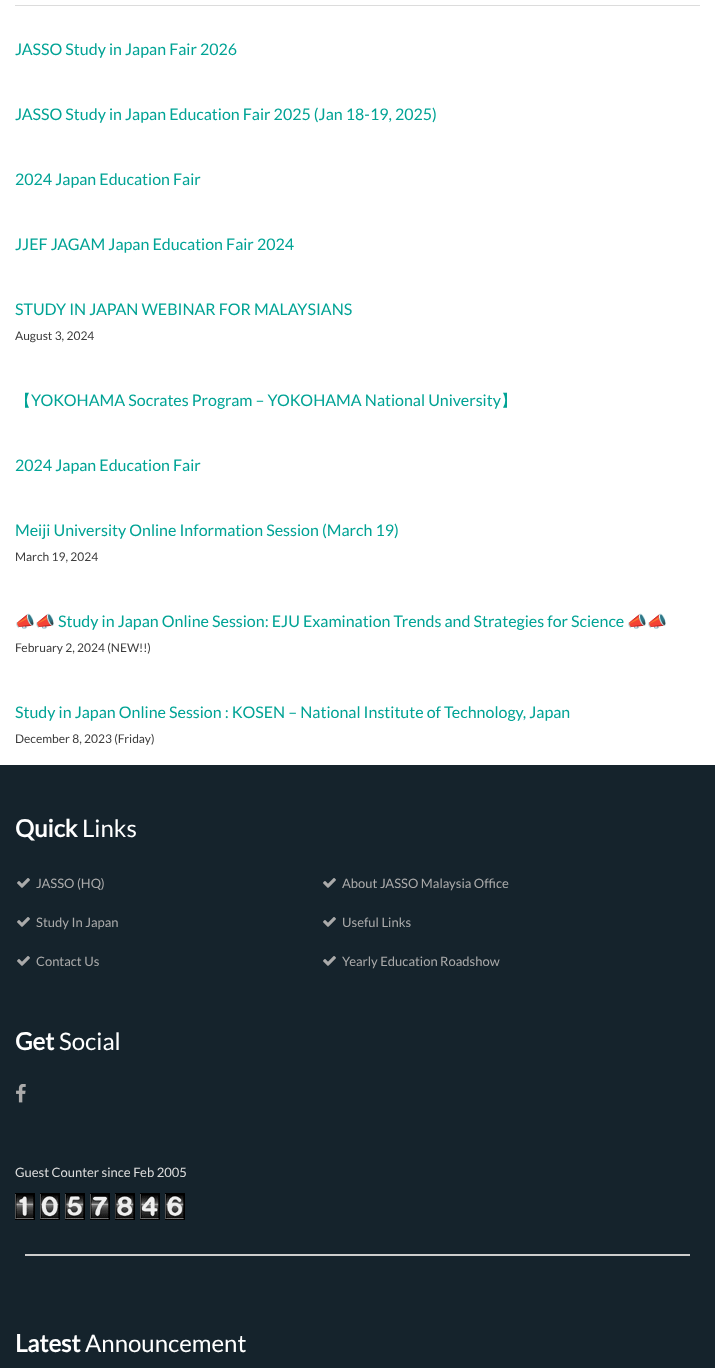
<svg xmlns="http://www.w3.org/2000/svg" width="715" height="1368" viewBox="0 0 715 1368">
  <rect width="100%" height="100%" fill="#fff"/>
  <path d="M15 5h685v1H15z" fill="#dcdcdc"/>
  <path d="M0 765h715v603H0z" fill="#15232c"/>
  <image x="17" y="878" width="13" height="10" href="img/1.png"/>
  <image x="323" y="878" width="13" height="10" href="img/1.png"/>
  <image x="17" y="917" width="13" height="10" href="img/1.png"/>
  <image x="323" y="917" width="13" height="10" href="img/1.png"/>
  <image x="17" y="956" width="13" height="10" href="img/1.png"/>
  <image x="323" y="956" width="13" height="10" href="img/1.png"/>
  <image x="16" y="1084" width="10" height="19" href="img/2.png"/>
  <image x="15" y="1193" width="20" height="27" href="img/3.png"/>
  <image x="40" y="1193" width="20" height="27" href="img/4.png"/>
  <image x="65" y="1193" width="20" height="27" href="img/5.png"/>
  <image x="90" y="1193" width="20" height="27" href="img/6.png"/>
  <image x="115" y="1193" width="20" height="27" href="img/7.png"/>
  <image x="140" y="1193" width="20" height="27" href="img/8.png"/>
  <image x="165" y="1193" width="20" height="27" href="img/9.png"/>
  <path d="M25 1254h665v2H25z" fill="#ccc"/>
  <g font-family="Lato" font-size="16" fill="#00a395">
    <text x="15" y="55">JASSO Study in Japan Fair 2026</text>
    <text x="15" y="120">JASSO Study in Japan Education Fair 2025 (Jan 18-19, 2025)</text>
    <text x="15" y="185">2024 Japan Education Fair</text>
    <text x="15" y="250">JJEF JAGAM Japan Education Fair 2024</text>
    <text x="15" y="315">STUDY IN JAPAN WEBINAR FOR MALAYSIANS</text>
  </g>
  <text x="15" y="340" font-family="Lato" font-size="12" fill="#3c3c3c">August 3, 2024</text>
  <text x="15" y="406" font-family="WenQuanYi Zen Hei" font-size="16" font-weight="500" fill="#00a395">【</text>
  <text x="31" y="406" font-family="Lato" font-size="16" fill="#00a395">YOKOHAMA Socrates Program – YOKOHAMA National University</text>
  <text x="501" y="406" font-family="WenQuanYi Zen Hei" font-size="16" font-weight="500" fill="#00a395">】</text>
  <g font-family="Lato" font-size="16" fill="#00a395">
    <text x="15" y="471">2024 Japan Education Fair</text>
    <text x="15" y="536">Meiji University Online Information Session (March 19)</text>
  </g>
  <text x="15" y="561" font-family="Lato" font-size="12" fill="#3c3c3c">March 19, 2024</text>
  <text x="15" y="627" font-family="Noto Color Emoji" font-size="16" fill="#00a395">📣📣</text>
  <text x="58" y="627" font-family="Lato" font-size="16" fill="#00a395">Study in Japan Online Session: EJU Examination Trends and Strategies for Science</text>
  <text x="627" y="627" font-family="Noto Color Emoji" font-size="16" fill="#00a395">📣📣</text>
  <text x="15" y="652" font-family="Lato" font-size="12" fill="#3c3c3c">February 2, 2024 (NEW!!)</text>
  <text x="15" y="718" font-family="Lato" font-size="16" fill="#00a395">Study in Japan Online Session : KOSEN – National Institute of Technology, Japan</text>
  <text x="15" y="743" font-family="Lato" font-size="12" fill="#3c3c3c">December 8, 2023 (Friday)</text>
  <text x="15" y="837" font-family="Lato" font-size="24" font-weight="bold" fill="#fff">Quick</text>
  <text x="82" y="837" font-family="Lato" font-size="24" fill="#fff">Links</text>
  <g font-family="Lato" font-size="13" fill="#aaa">
    <text x="36" y="888">JASSO (HQ)</text>
    <text x="342" y="888">About JASSO Malaysia Office</text>
    <text x="36" y="927">Study In Japan</text>
    <text x="342" y="927">Useful Links</text>
    <text x="36" y="966">Contact Us</text>
    <text x="342" y="966">Yearly Education Roadshow</text>
  </g>
  <text x="15" y="1050" font-family="Lato" font-size="24" font-weight="bold" fill="#fff">Get</text>
  <text x="59" y="1050" font-family="Lato" font-size="24" fill="#fff">Social</text>
  <text x="15" y="1177" font-family="Lato" font-size="13" fill="#dcdcdc">Guest Counter since Feb 2005</text>
  <text x="15" y="1352" font-family="Lato" font-size="24" font-weight="bold" fill="#fff">Latest</text>
  <text x="85" y="1352" font-family="Lato" font-size="24" fill="#fff">Announcement</text>
</svg>
